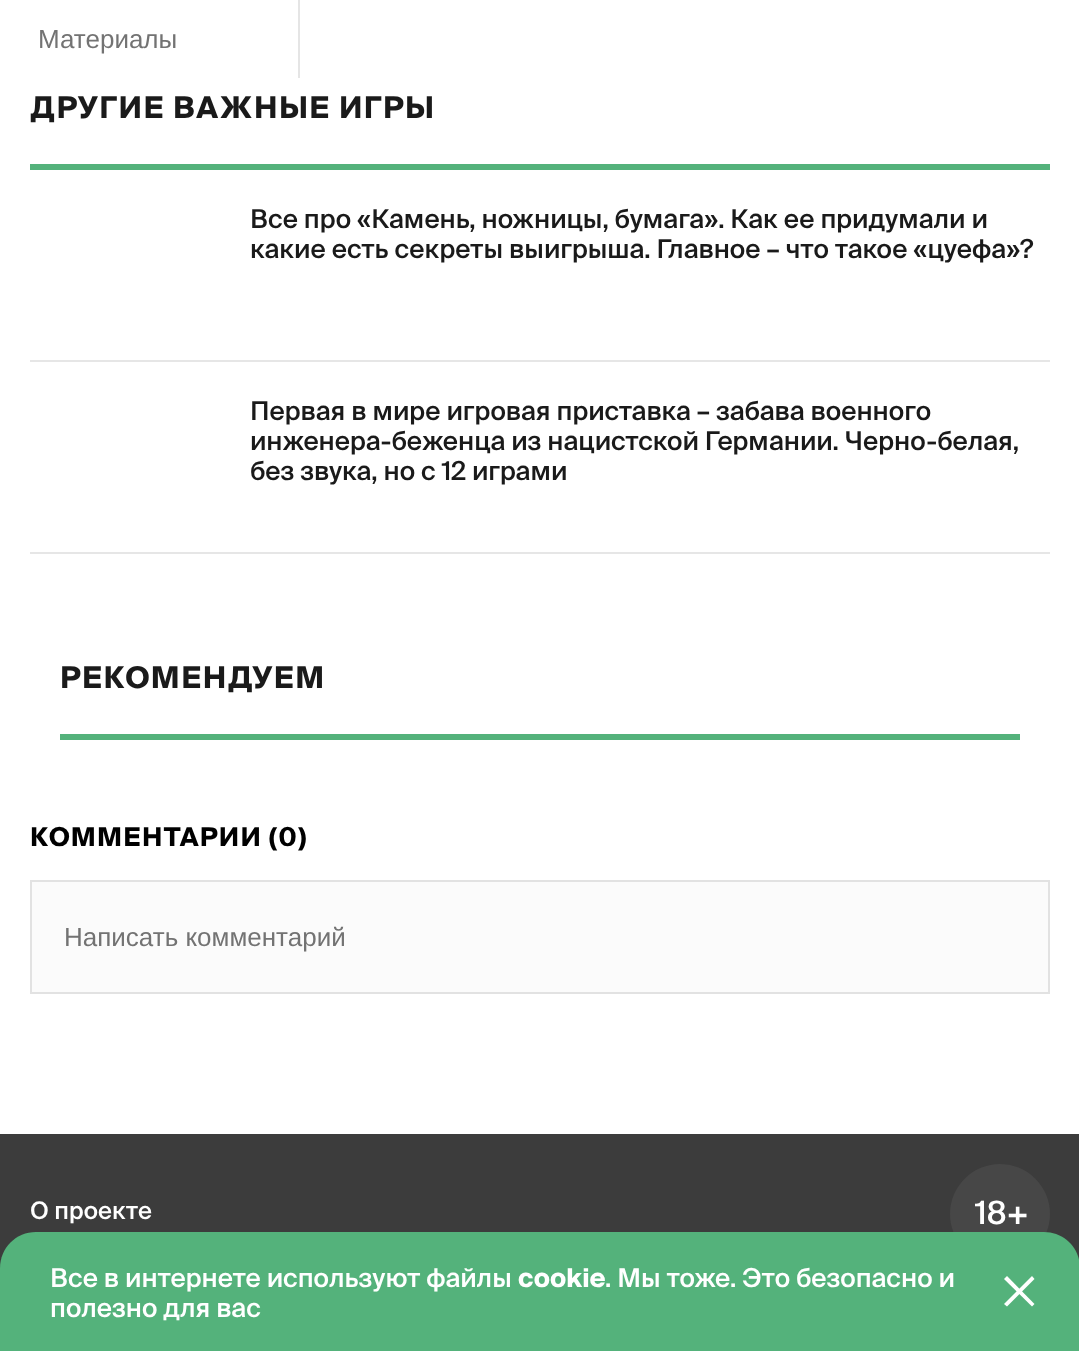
<svg xmlns="http://www.w3.org/2000/svg" width="1079" height="1351" viewBox="0 0 1079 1351">
  <rect width="100%" height="100%" fill="#fff"/>
  <path d="M298 0h2v78H298z" fill="#e5e5e5"/>
  <path d="M30 164h1020v6H30z" fill="#54b27b"/>
  <path d="M30 360h1020v2H30z" fill="#e6e6e6"/>
  <path d="M30 552h1020v2H30z" fill="#e6e6e6"/>
  <path d="M60 734h960v6H60z" fill="#54b27b"/>
  <path d="M31 881h1018v112H31z" fill="#fbfbfb" stroke="#e2e2e2" stroke-width="2"/>
  <path d="M0 1134h1079v134H0z" fill="#3c3c3c"/>
  <circle cx="1000" cy="1214" r="50" fill="#474747"/>
  <path d="M36 1232H1044C1064 1232 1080 1248 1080 1268V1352H0V1268C0 1248 16 1232 36 1232Z" fill="#54b27b"/>
  <path d="M1034.5 1279L1007 1306.5L1004 1304L1032 1276Z" fill="#fff" fill-rule="evenodd"/>
  <path d="M1032 1306.5L1004 1279L1007 1276L1034.5 1304Z" fill="#fff" fill-rule="evenodd"/>
  <text x="38" y="48" font-family="Liberation Sans" font-size="26" fill="#737373">Материалы</text>
  <text x="30" y="118" font-family="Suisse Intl" font-size="30" font-weight="bold" letter-spacing="1.5" fill="#1a1a1a">ДРУГИЕ ВАЖНЫЕ ИГРЫ</text>
  <g font-family="Suisse Intl" font-size="26" font-weight="500" fill="#1a1a1a">
    <text x="250" y="228">Все про «Камень, ножницы, бумага». Как ее придумали и</text>
    <text x="250" y="258">какие есть секреты выигрыша. Главное – что такое «цуефа»?</text>
    <text x="250" y="420">Первая в мире игровая приставка – забава военного</text>
    <text x="250" y="450">инженера-беженца из нацистской Германии. Черно-белая,</text>
    <text x="250" y="480">без звука, но с 12 играми</text>
  </g>
  <text x="60" y="688" font-family="Suisse Intl" font-size="30" font-weight="bold" letter-spacing="1.5" fill="#1a1a1a">РЕКОМЕНДУЕМ</text>
  <text x="30" y="846" font-family="Suisse Intl" font-size="26" font-weight="bold" letter-spacing="1.25" fill="#000">КОММЕНТАРИИ (0)</text>
  <text x="64" y="946" font-family="Liberation Sans" font-size="26" fill="#737373">Написать комментарий</text>
  <text x="30" y="1219" font-family="Suisse Intl" font-size="24" font-weight="500" fill="#fff">О проекте</text>
  <text x="975" y="1224" font-family="Suisse Intl" font-size="32" font-weight="500" fill="#fff">18+</text>
  <text x="50" y="1287" font-family="Suisse Intl" font-size="26" font-weight="500" fill="#fff">Все в интернете используют файлы</text>
  <text x="518" y="1287" font-family="Suisse Intl" font-size="26" font-weight="bold" fill="#fff">cookie</text>
  <g font-family="Suisse Intl" font-size="26" font-weight="500" fill="#fff">
    <text x="605" y="1287">. Мы тоже. Это безопасно и</text>
    <text x="50" y="1317">полезно для вас</text>
  </g>
</svg>
